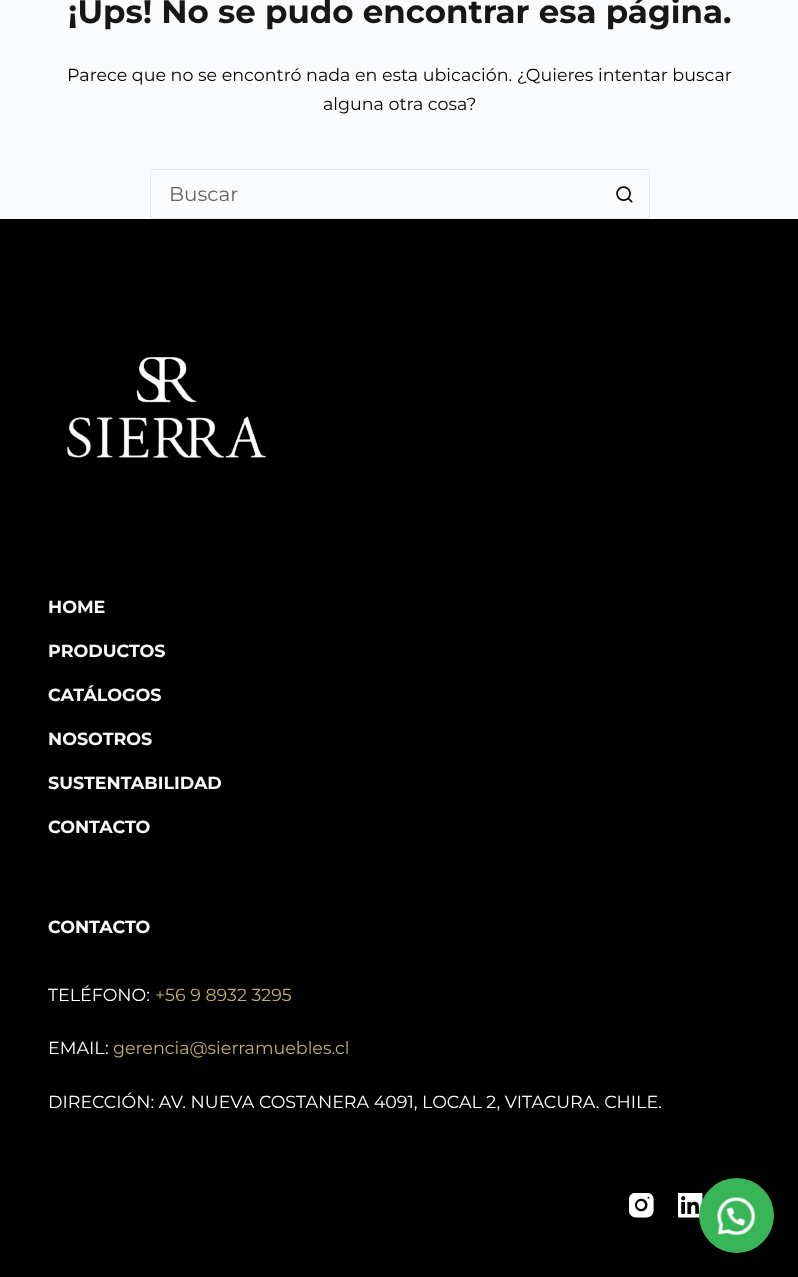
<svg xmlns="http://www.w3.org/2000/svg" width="798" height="1277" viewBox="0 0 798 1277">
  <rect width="100%" height="100%" fill="#fafbfc"/>
  <path d="M154 169H600V219H154C152 219 150 217 150 215V172C150 170 152 169 154 169ZM154 170H600V218H154C152 218 151 216 151 215V172C151 171 152 170 154 170Z" fill="#e1e8ed" fill-rule="evenodd"/>
  <path d="M600 169H646C648 169 650 170 650 172V215C650 217 648 219 646 219H600ZM600 170H646C648 170 649 171 649 172V215C649 216 648 218 646 218H600Z" fill="#e1e8ed" fill-rule="evenodd"/>
  <image x="616" y="186" width="17" height="17" href="img/1.png"/>
  <path d="M0 219h798v1058H0z" fill="#000"/>
  <image x="67" y="357" width="199" height="101" href="img/2.png"/>
  <image x="629" y="1193" width="25" height="25" href="img/3.png"/>
  <image x="678" y="1193" width="25" height="25" href="img/4.png"/>
  <circle cx="736.5" cy="1215.5" r="37.5" fill="#38b557"/>
  <image x="717" y="1197" width="39" height="39" href="img/5.png"/>
  <text x="68" y="23" font-family="Montserrat" font-size="32.5" font-weight="bold" fill="#171717">¡Ups! No se pudo encontrar esa página.</text>
  <g font-family="Montserrat" font-size="17.5" fill="#000">
    <text x="67" y="81">Parece que no se encontró nada en esta ubicación. ¿Quieres intentar buscar</text>
    <text x="323" y="110">alguna otra cosa?</text>
  </g>
  <text x="169" y="201" font-family="Montserrat" font-size="20" fill="#646465">Buscar</text>
  <g font-family="Montserrat" font-size="17.5" font-weight="bold" fill="#f9f9f9">
    <text x="48" y="613">HOME</text>
    <text x="48" y="657">PRODUCTOS</text>
    <text x="48" y="701">CATÁLOGOS</text>
    <text x="48" y="745">NOSOTROS</text>
    <text x="48" y="789">SUSTENTABILIDAD</text>
    <text x="48" y="833">CONTACTO</text>
  </g>
  <text x="48" y="933" font-family="Montserrat" font-size="17.5" font-weight="bold" fill="#fff">CONTACTO</text>
  <text x="48" y="1001" font-family="Montserrat" font-size="17.5" fill="#fff">TELÉFONO:</text>
  <text x="155" y="1001" font-family="Montserrat" font-size="17.5" fill="#bfae6e">+56 9 8932 3295</text>
  <text x="48" y="1054" font-family="Montserrat" font-size="17.5" fill="#fff">EMAIL:</text>
  <text x="113" y="1054" font-family="Montserrat" font-size="17.5" fill="#bfae6e">gerencia@sierramuebles.cl</text>
  <text x="48" y="1108" font-family="Montserrat" font-size="17.5" fill="#fff">DIRECCIÓN: AV. NUEVA COSTANERA 4091, LOCAL 2, VITACURA. CHILE.</text>
</svg>
